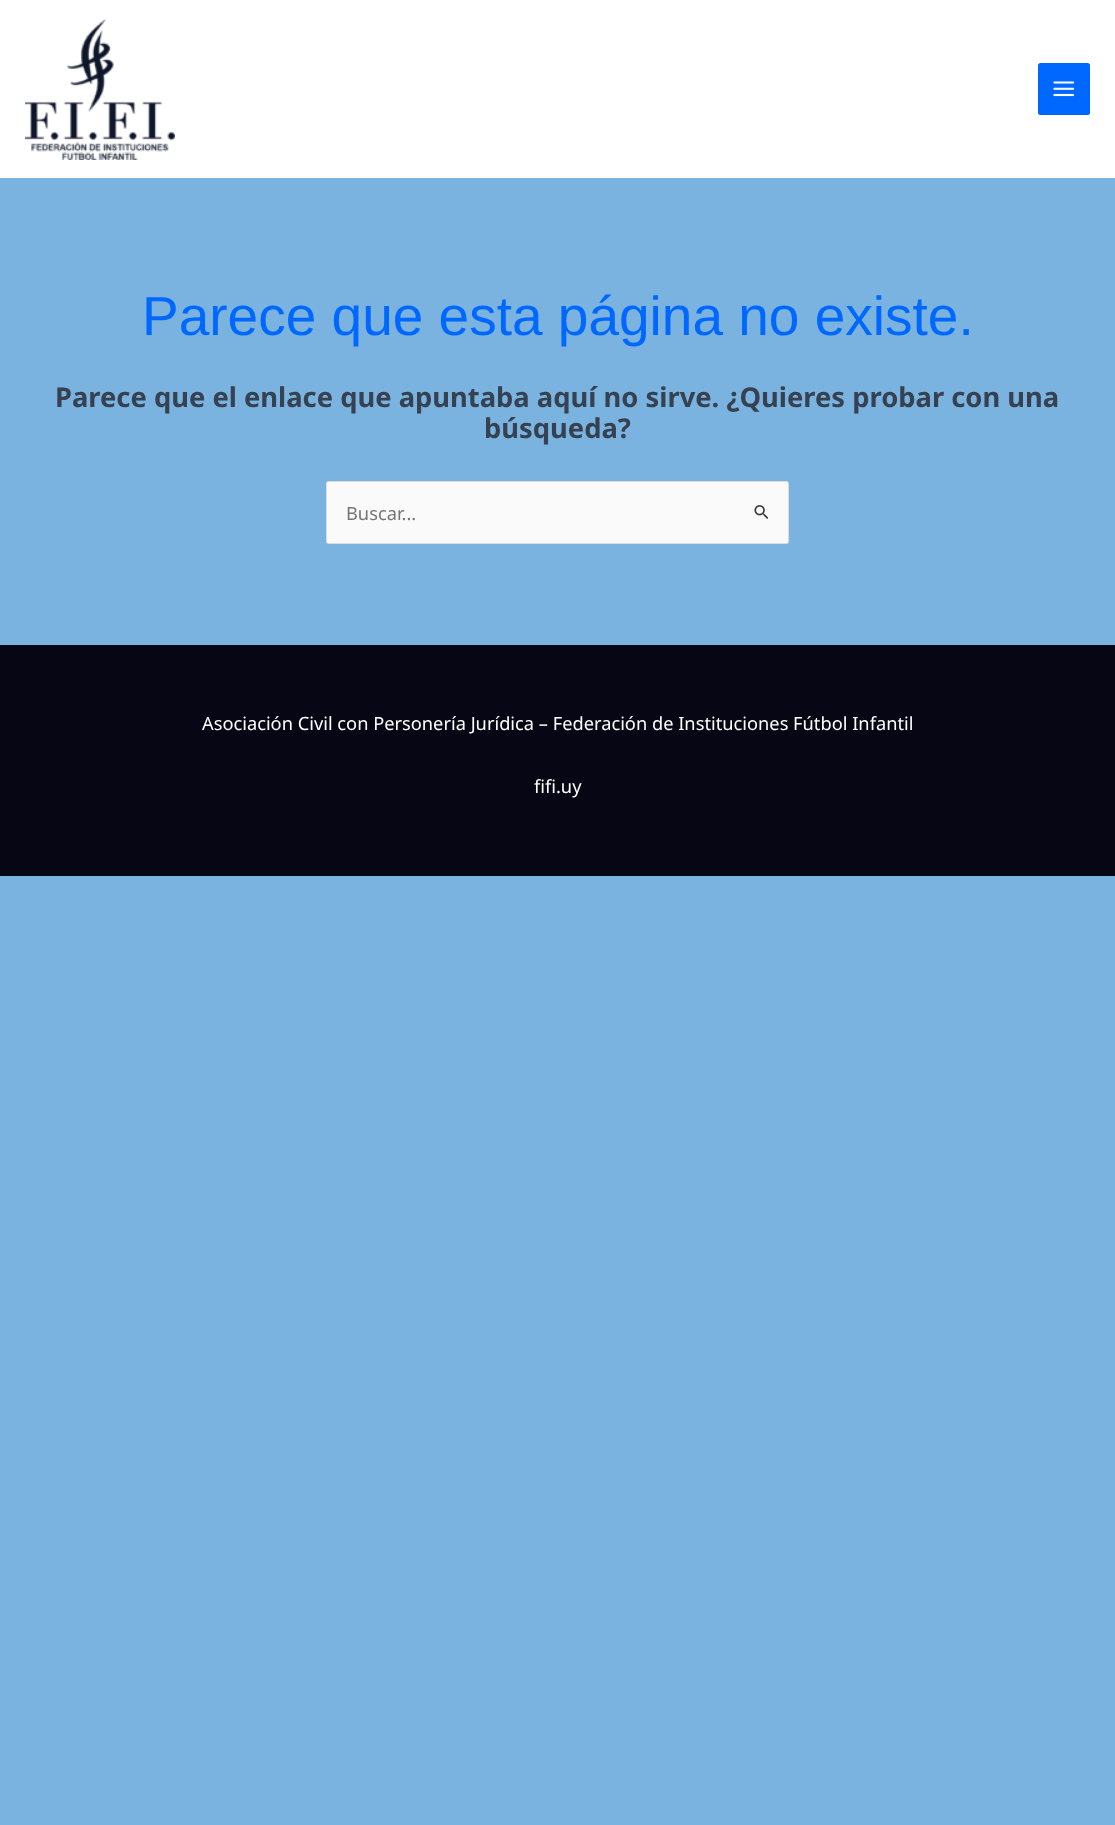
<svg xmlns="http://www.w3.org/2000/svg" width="1115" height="1825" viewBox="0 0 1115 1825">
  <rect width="100%" height="100%" fill="#7ab3df"/>
  <path d="M0 0h1115v178H0z" fill="#fff"/>
  <image x="25" y="19" width="150" height="141" href="img/1.png"/>
  <rect x="1038" y="63" width="52" height="52" rx="2.5" fill="#0067ff"/>
  <image x="1053" y="81" width="22" height="16" href="img/2.png"/>
  <rect x="326.5" y="481.5" width="462" height="62" rx="2" fill="#fafafa" stroke="#ddd"/>
  <image x="754" y="505" width="14" height="14" href="img/3.png"/>
  <path d="M0 645h1115v231H0z" fill="#070614"/>
  <text x="142" y="335" font-family="Liberation Sans" font-size="55" fill="#0067ff">Parece que esta página no existe.</text>
  <g font-family="Noto Sans" font-size="27.35" font-weight="bold" fill="#364151">
    <text x="55" y="407">Parece que el enlace que apuntaba aquí no sirve. ¿Quieres probar con una</text>
    <text x="484" y="438">búsqueda?</text>
  </g>
  <text x="346" y="520" font-family="Noto Sans" font-size="18.25" fill="#757575">Buscar...</text>
  <g font-family="Noto Sans" font-size="18.25" fill="#fff">
    <text x="202" y="730">Asociación Civil con Personería Jurídica – Federación de Instituciones Fútbol Infantil</text>
    <text x="534" y="793">fifi.uy</text>
  </g>
</svg>
